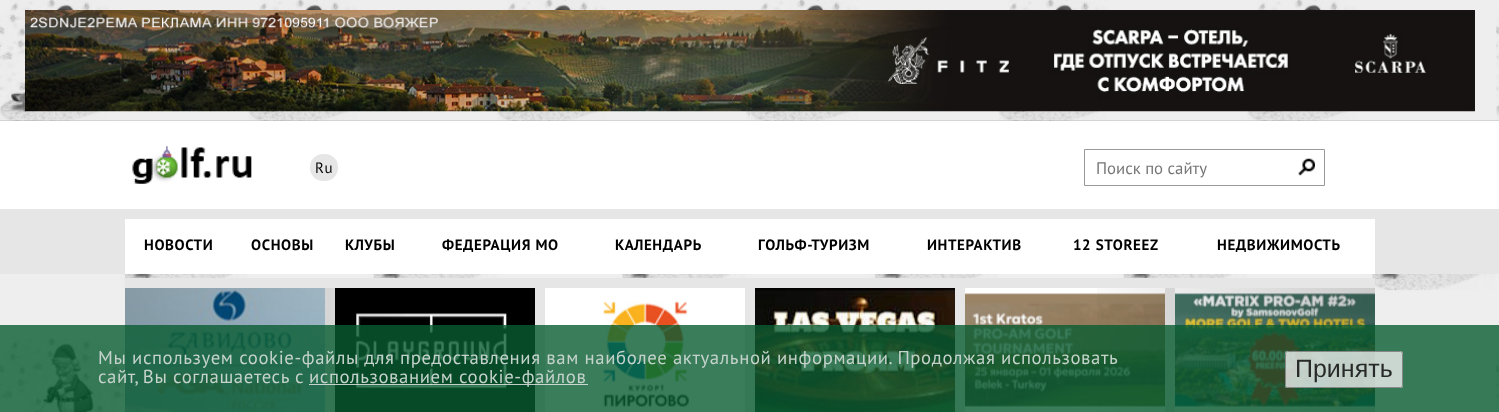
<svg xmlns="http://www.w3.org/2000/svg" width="1499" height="412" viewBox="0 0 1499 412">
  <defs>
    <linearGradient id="g1" gradientUnits="userSpaceOnUse" x1="438" y1="398" x2="125" y2="398"><stop offset="0" stop-color="#000" stop-opacity="0"/><stop offset="1" stop-color="#000" stop-opacity="0.2"/></linearGradient>
    <linearGradient id="g2" gradientUnits="userSpaceOnUse" x1="1063" y1="398" x2="1375" y2="398"><stop offset="0" stop-color="#000" stop-opacity="0"/><stop offset="1" stop-color="#000" stop-opacity="0.2"/></linearGradient>
  </defs>
  <rect width="100%" height="100%" fill="#fff"/>
  <image x="0" y="0" width="750" height="412" href="img/1.png"/>
  <image x="750" y="0" width="749" height="412" href="img/2.png"/>
  <image x="25" y="10" width="1450" height="102" href="img/3.png"/>
  <path d="M-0.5 120.5h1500v89H-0.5z" fill="none" stroke="#0000001a"/>
  <path d="M0 121h1499v88H0z" fill="#fff"/>
  <image x="132" y="146" width="120" height="38" href="img/4.png"/>
  <rect x="310" y="154" width="28" height="27" rx="13" fill="#e6e6e6"/>
  <path d="M1084.5 149.5h240v36H1084.5z" fill="none" stroke="#999"/>
  <image x="1298" y="158" width="17" height="18" href="img/5.png"/>
  <path d="M0 209h1499v65H0z" fill="#e6e6e6"/>
  <path d="M125 219h1250v55H125z" fill="#fff"/>
  <path d="M125 278h1250v134H125z" fill="#e6e6e6"/>
  <image x="125" y="288" width="200" height="124" href="img/6.png"/>
  <image x="335" y="288" width="200" height="124" href="img/7.png"/>
  <path d="M545 288h200v124H545z" fill="#fff"/>
  <image x="603" y="301" width="86" height="107" href="img/8.png"/>
  <image x="755" y="288" width="200" height="124" href="img/9.png"/>
  <path d="M965 288h200v124H965z" fill="#fff"/>
  <image x="965" y="293" width="200" height="114" href="img/10.png"/>
  <path d="M1175 288h200v124H1175z" fill="#fff"/>
  <image x="1175" y="293" width="200" height="114" href="img/11.png"/>
  <path d="M125 288h279v124H125z" fill="url(#g1)"/>
  <path d="M1097 288h278v124H1097z" fill="url(#g2)"/>
  <path d="M0 325h1499v87H0z" fill="#095c32cc"/>
  <path d="M309 384h279v1H309z" fill="#eeeeeecc"/>
  <rect x="1285" y="351" width="118" height="37" rx="2.5" fill="#efefefcc"/>
  <rect x="1285.5" y="351.5" width="117" height="36" rx="2" fill="none" stroke="#767676cc"/>
  <text x="315" y="173" font-family="PT Sans" font-size="15" letter-spacing="0.62" fill="#000">Ru</text>
  <text x="1096" y="174" font-family="PT Sans" font-size="16.75" fill="#757575">Поиск по сайту</text>
  <g font-family="PT Sans" font-size="15" font-weight="bold" letter-spacing="0.62" fill="#000">
    <text x="144" y="250">НОВОСТИ</text>
    <text x="251" y="250">ОСНОВЫ</text>
    <text x="345" y="250">КЛУБЫ</text>
    <text x="442" y="250">ФЕДЕРАЦИЯ МО</text>
    <text x="615" y="250">КАЛЕНДАРЬ</text>
    <text x="758" y="250">ГОЛЬФ-ТУРИЗМ</text>
    <text x="927" y="250">ИНТЕРАКТИВ</text>
    <text x="1073" y="250">12 STOREEZ</text>
    <text x="1217" y="250">НЕДВИЖИМОСТЬ</text>
  </g>
  <g font-family="PT Sans" font-size="18.75" letter-spacing="0.62" fill="#c5d3cc">
    <text x="98" y="364">Мы используем cookie-файлы для предоставления вам наиболее актуальной информации. Продолжая использовать</text>
    <text x="98" y="383">сайт, Вы соглашаетесь с</text>
    <text x="309" y="383">использованием cookie-файлов</text>
  </g>
  <text x="1295" y="377" font-family="Liberation Sans" font-size="25" fill="#272a29">Принять</text>
</svg>
